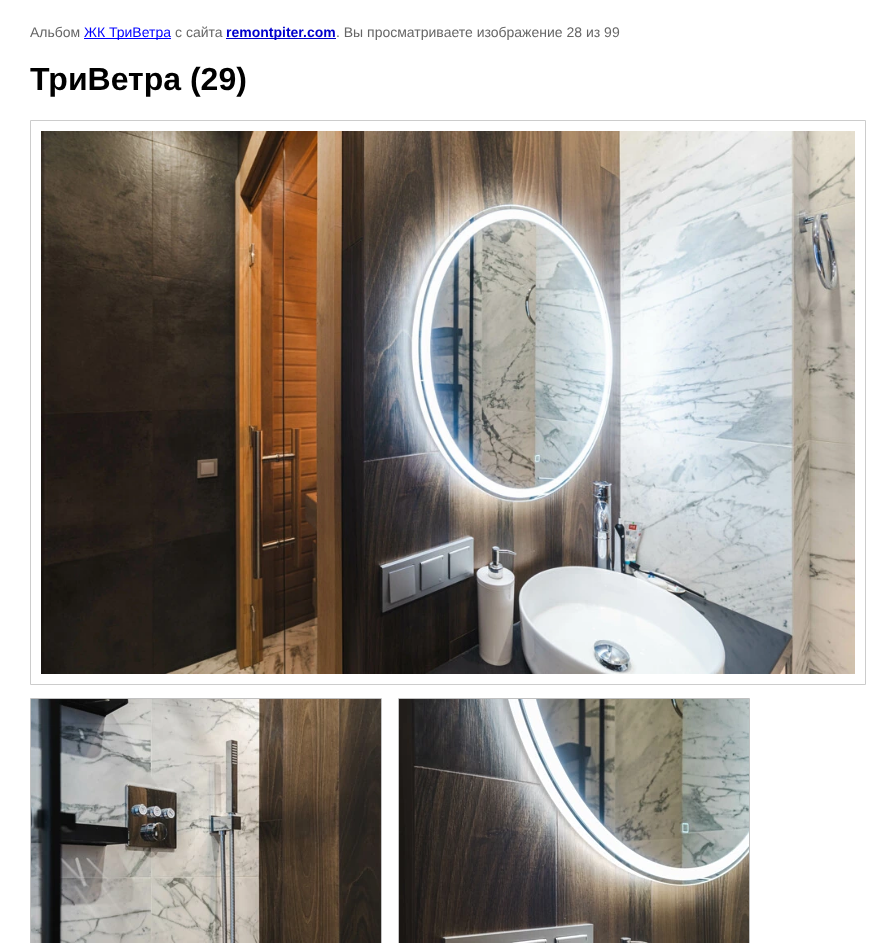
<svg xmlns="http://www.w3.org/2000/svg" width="896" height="943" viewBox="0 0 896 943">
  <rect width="100%" height="100%" fill="#fff"/>
  <path d="M84 38h87v1H84z" fill="#00f"/>
  <path d="M226 38h110v1H226z" fill="#00c"/>
  <path d="M30.5 120.5h835v564H30.5z" fill="none" stroke="#ccc"/>
  <image x="41" y="131" width="814" height="543" href="img/1.png"/>
  <path d="M30.5 698.5h351v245H30.5z" fill="none" stroke="#c0c0c0"/>
  <image x="31" y="699" width="350" height="244" href="img/2.png"/>
  <path d="M398.5 698.5h351v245H398.5z" fill="none" stroke="#c0c0c0"/>
  <image x="399" y="699" width="350" height="244" href="img/3.png"/>
  <text x="30" y="37" font-family="Liberation Sans" font-size="14" fill="#666">Альбом</text>
  <text x="84" y="37" font-family="Liberation Sans" font-size="14" fill="#00f">ЖК ТриВетра</text>
  <text x="175" y="37" font-family="Liberation Sans" font-size="14" fill="#666">с сайта</text>
  <text x="226" y="37" font-family="Liberation Sans" font-size="14" font-weight="bold" fill="#00c">remontpiter.com</text>
  <text x="336" y="37" font-family="Liberation Sans" font-size="14" fill="#666">. Вы просматриваете изображение 28 из 99</text>
  <text x="30" y="90" font-family="Liberation Sans" font-size="32" font-weight="bold" fill="#000">ТриВетра (29)</text>
</svg>
